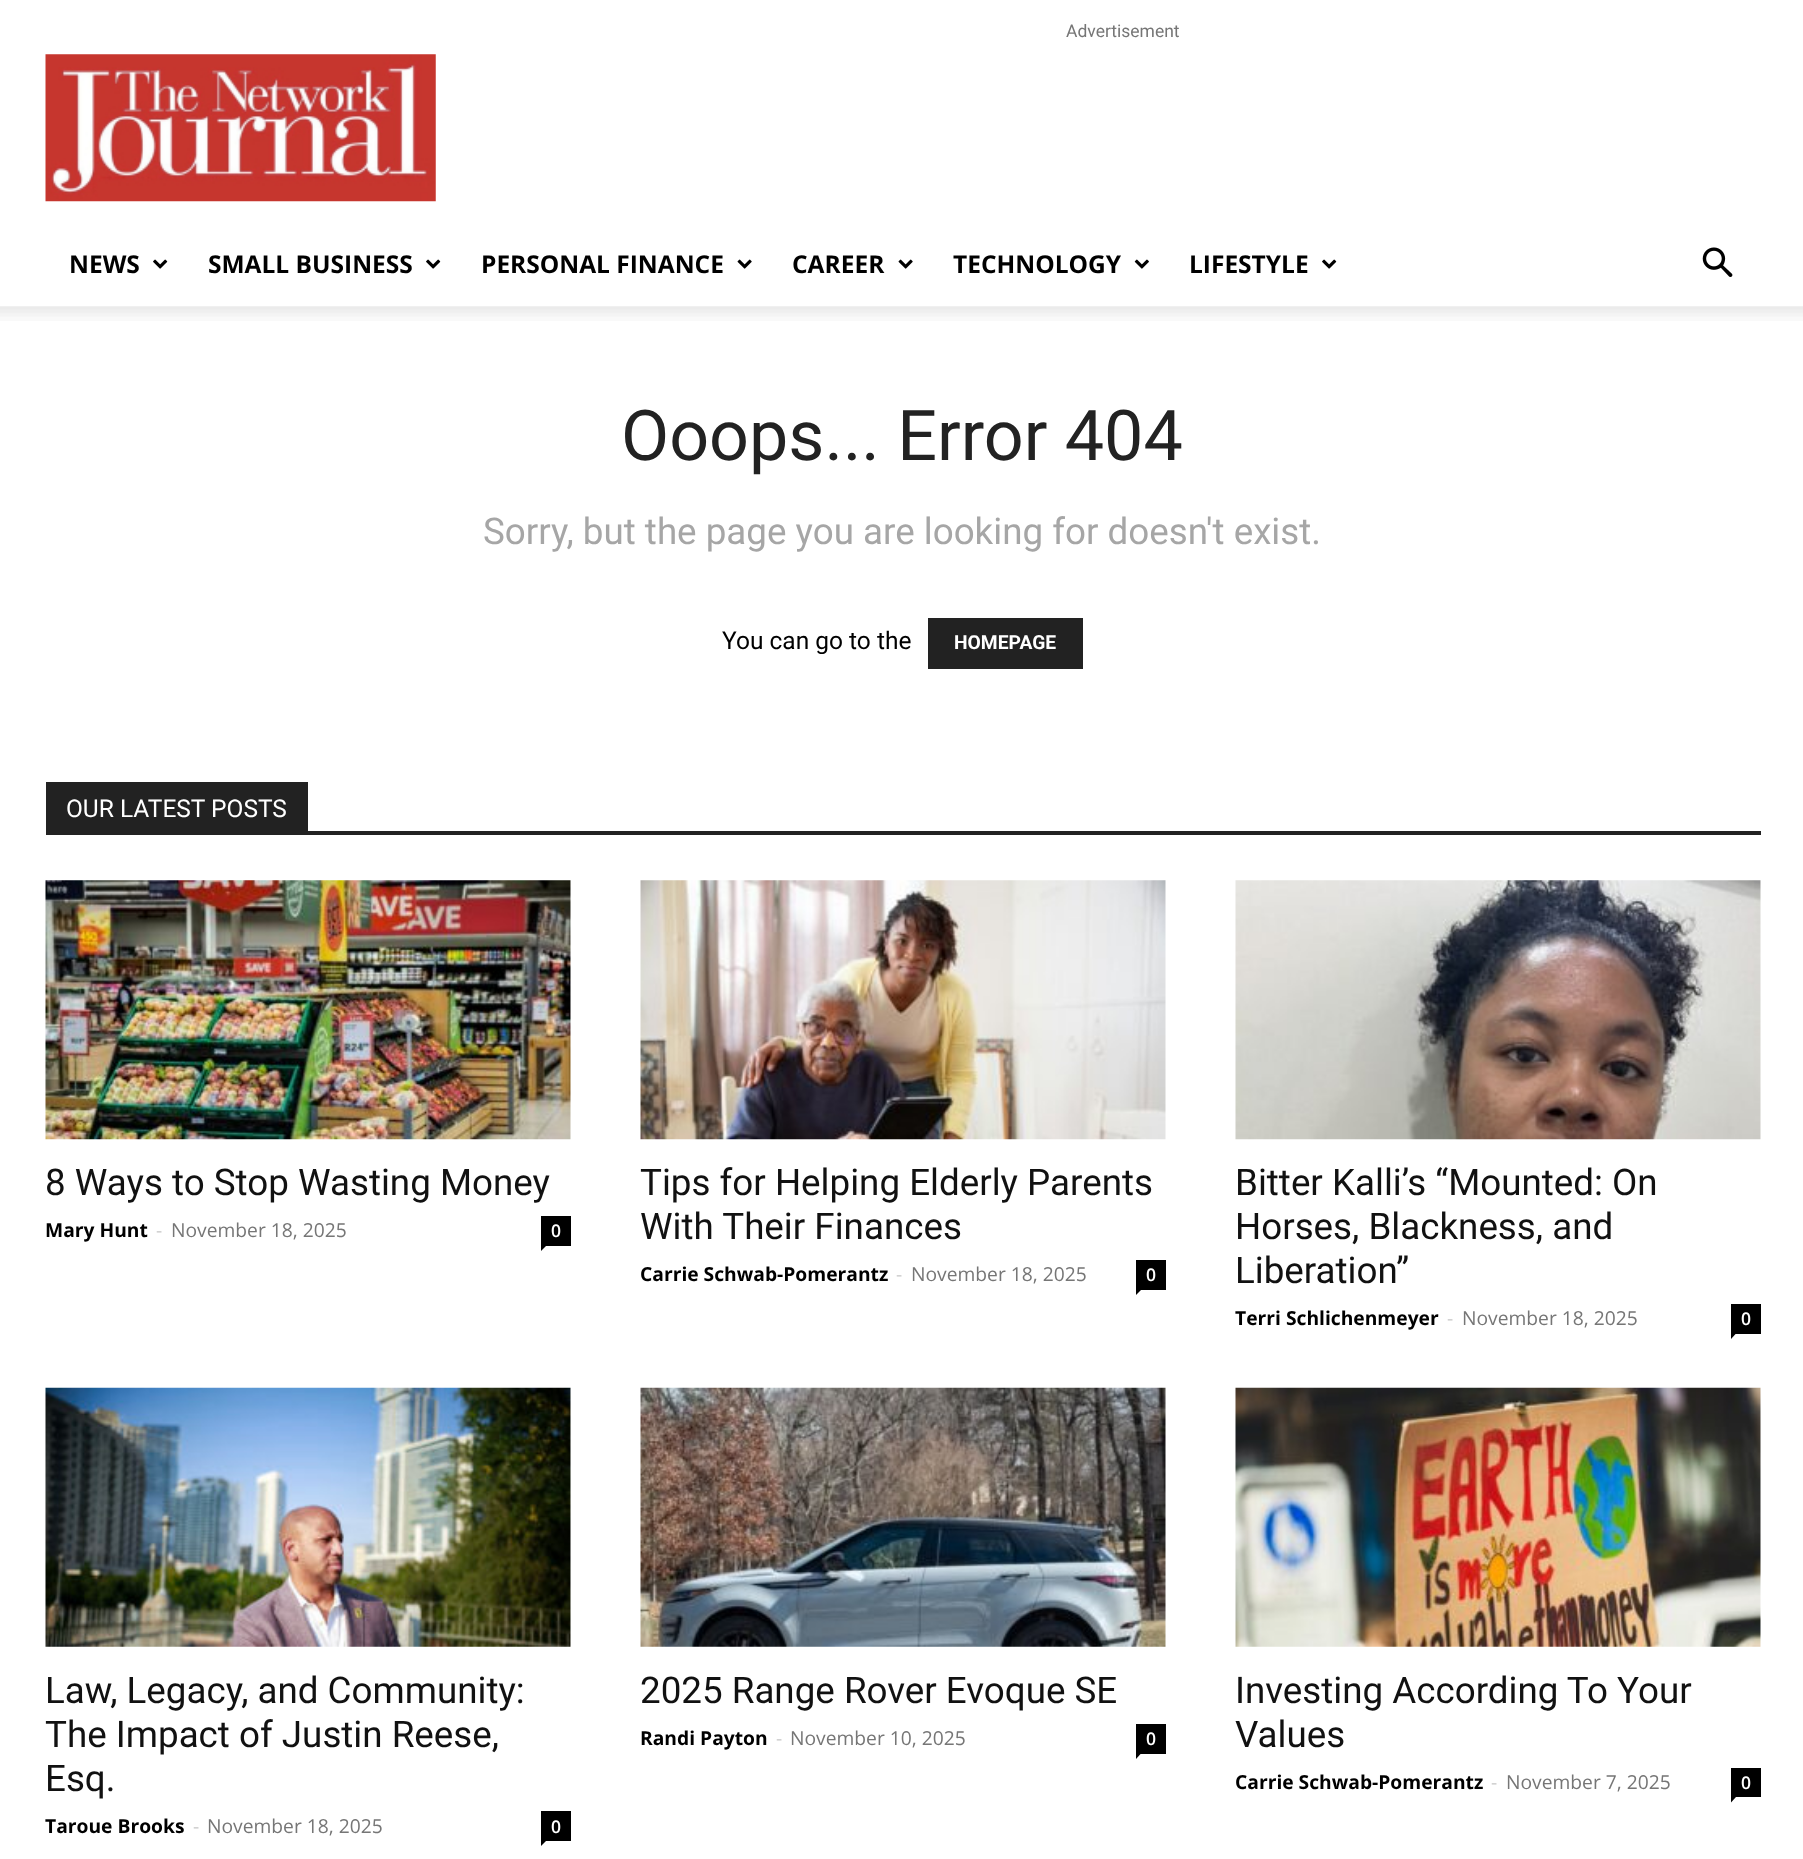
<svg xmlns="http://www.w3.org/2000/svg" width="1803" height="1859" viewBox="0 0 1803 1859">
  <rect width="100%" height="100%" fill="#fff"/>
  <image x="45" y="54" width="391" height="148" href="img/1.png"/>
  <image x="153" y="259" width="15" height="10" href="img/2.png"/>
  <image x="426" y="259" width="15" height="10" href="img/2.png"/>
  <image x="737" y="259" width="15" height="10" href="img/3.png"/>
  <image x="898" y="259" width="15" height="10" href="img/3.png"/>
  <image x="1134" y="259" width="15" height="10" href="img/4.png"/>
  <image x="1322" y="259" width="15" height="10" href="img/2.png"/>
  <image x="1702" y="247" width="31" height="30" href="img/5.png"/>
  <image x="0" y="306" width="1803" height="15" href="img/6.png"/>
  <path d="M928 618h155v51H928z" fill="#222"/>
  <path d="M46 831h1715v4H46z" fill="#222"/>
  <path d="M46 782h262v49H46z" fill="#222"/>
  <image x="45" y="880" width="526" height="260" href="img/7.png"/>
  <path d="M541 1216h30v30H541z" fill="#000"/>
  <path d="M541 1246H546L541 1251Z" fill="#000"/>
  <image x="640" y="880" width="526" height="260" href="img/8.png"/>
  <path d="M1136 1260h30v30H1136z" fill="#000"/>
  <path d="M1136 1290H1141L1136 1295Z" fill="#000"/>
  <image x="1235" y="880" width="526" height="260" href="img/9.png"/>
  <path d="M1731 1304h30v30H1731z" fill="#000"/>
  <path d="M1731 1333.5H1736L1731 1339Z" fill="#000"/>
  <image x="45" y="1387" width="526" height="260" href="img/10.png"/>
  <path d="M541 1811h30v30H541z" fill="#000"/>
  <path d="M541 1841H546L541 1846Z" fill="#000"/>
  <image x="640" y="1387" width="526" height="260" href="img/11.png"/>
  <path d="M1136 1724h30v30H1136z" fill="#000"/>
  <path d="M1136 1753.5H1141L1136 1759Z" fill="#000"/>
  <image x="1235" y="1387" width="526" height="260" href="img/12.png"/>
  <path d="M1731 1768h30v29H1731z" fill="#000"/>
  <path d="M1731 1797H1736L1731 1802.5Z" fill="#000"/>
  <text x="1066" y="37" font-family="Roboto" font-size="17.5" fill="#767676">Advertisement</text>
  <g font-family="Open Sans" font-size="24.5" font-weight="bold" fill="#000">
    <text x="69" y="273">NEWS</text>
    <text x="208" y="273">SMALL BUSINESS</text>
    <text x="481" y="273">PERSONAL FINANCE</text>
    <text x="792" y="273">CAREER</text>
    <text x="953" y="273">TECHNOLOGY</text>
    <text x="1189" y="273">LIFESTYLE</text>
  </g>
  <text x="621" y="460" font-family="Roboto" font-size="70" fill="#222">Ooops... Error 404</text>
  <text x="483" y="544" font-family="Roboto" font-size="36.75" fill="#a6a6a6">Sorry, but the page you are looking for doesn't exist.</text>
  <text x="722" y="649" font-family="Roboto" font-size="24.5" fill="#000">You can go to the</text>
  <text x="954" y="649" font-family="Roboto" font-size="19.25" font-weight="bold" fill="#fff">HOMEPAGE</text>
  <text x="66" y="817" font-family="Roboto" font-size="24.5" fill="#fff">OUR LATEST POSTS</text>
  <text x="45" y="1195" font-family="Roboto" font-size="36.75" fill="#111">8 Ways to Stop Wasting Money</text>
  <text x="45" y="1237" font-family="Open Sans" font-size="19.25" font-weight="bold" fill="#000">Mary Hunt</text>
  <text x="156" y="1237" font-family="Open Sans" font-size="19.25" fill="#ccc">-</text>
  <text x="171" y="1237" font-family="Open Sans" font-size="19.25" fill="#767676">November 18, 2025</text>
  <text x="551" y="1237" font-family="Open Sans" font-size="17.5" font-weight="600" fill="#fff">0</text>
  <g font-family="Roboto" font-size="36.75" fill="#111">
    <text x="640" y="1195">Tips for Helping Elderly Parents</text>
    <text x="640" y="1239">With Their Finances</text>
  </g>
  <text x="640" y="1281" font-family="Open Sans" font-size="19.25" font-weight="bold" fill="#000">Carrie Schwab-Pomerantz</text>
  <text x="896" y="1281" font-family="Open Sans" font-size="19.25" fill="#ccc">-</text>
  <text x="911" y="1281" font-family="Open Sans" font-size="19.25" fill="#767676">November 18, 2025</text>
  <text x="1146" y="1281" font-family="Open Sans" font-size="17.5" font-weight="600" fill="#fff">0</text>
  <g font-family="Roboto" font-size="36.75" fill="#111">
    <text x="1235" y="1195">Bitter Kalli’s “Mounted: On</text>
    <text x="1235" y="1239">Horses, Blackness, and</text>
    <text x="1235" y="1283">Liberation”</text>
  </g>
  <text x="1235" y="1325" font-family="Open Sans" font-size="19.25" font-weight="bold" fill="#000">Terri Schlichenmeyer</text>
  <text x="1447" y="1325" font-family="Open Sans" font-size="19.25" fill="#ccc">-</text>
  <text x="1462" y="1325" font-family="Open Sans" font-size="19.25" fill="#767676">November 18, 2025</text>
  <text x="1741" y="1325" font-family="Open Sans" font-size="17.5" font-weight="600" fill="#fff">0</text>
  <g font-family="Roboto" font-size="36.75" fill="#111">
    <text x="45" y="1703">Law, Legacy, and Community:</text>
    <text x="45" y="1747">The Impact of Justin Reese,</text>
    <text x="45" y="1791">Esq.</text>
  </g>
  <text x="45" y="1833" font-family="Open Sans" font-size="19.25" font-weight="bold" fill="#000">Taroue Brooks</text>
  <text x="193" y="1833" font-family="Open Sans" font-size="19.25" fill="#ccc">-</text>
  <text x="207" y="1833" font-family="Open Sans" font-size="19.25" fill="#767676">November 18, 2025</text>
  <text x="551" y="1833" font-family="Open Sans" font-size="17.5" font-weight="600" fill="#fff">0</text>
  <text x="640" y="1703" font-family="Roboto" font-size="36.75" fill="#111">2025 Range Rover Evoque SE</text>
  <text x="640" y="1745" font-family="Open Sans" font-size="19.25" font-weight="bold" fill="#000">Randi Payton</text>
  <text x="776" y="1745" font-family="Open Sans" font-size="19.25" fill="#ccc">-</text>
  <text x="790" y="1745" font-family="Open Sans" font-size="19.25" fill="#767676">November 10, 2025</text>
  <text x="1146" y="1745" font-family="Open Sans" font-size="17.5" font-weight="600" fill="#fff">0</text>
  <g font-family="Roboto" font-size="36.75" fill="#111">
    <text x="1235" y="1703">Investing According To Your</text>
    <text x="1235" y="1747">Values</text>
  </g>
  <text x="1235" y="1789" font-family="Open Sans" font-size="19.25" font-weight="bold" fill="#000">Carrie Schwab-Pomerantz</text>
  <text x="1491" y="1789" font-family="Open Sans" font-size="19.25" fill="#ccc">-</text>
  <text x="1506" y="1789" font-family="Open Sans" font-size="19.25" fill="#767676">November 7, 2025</text>
  <text x="1741" y="1789" font-family="Open Sans" font-size="17.5" font-weight="600" fill="#fff">0</text>
</svg>
